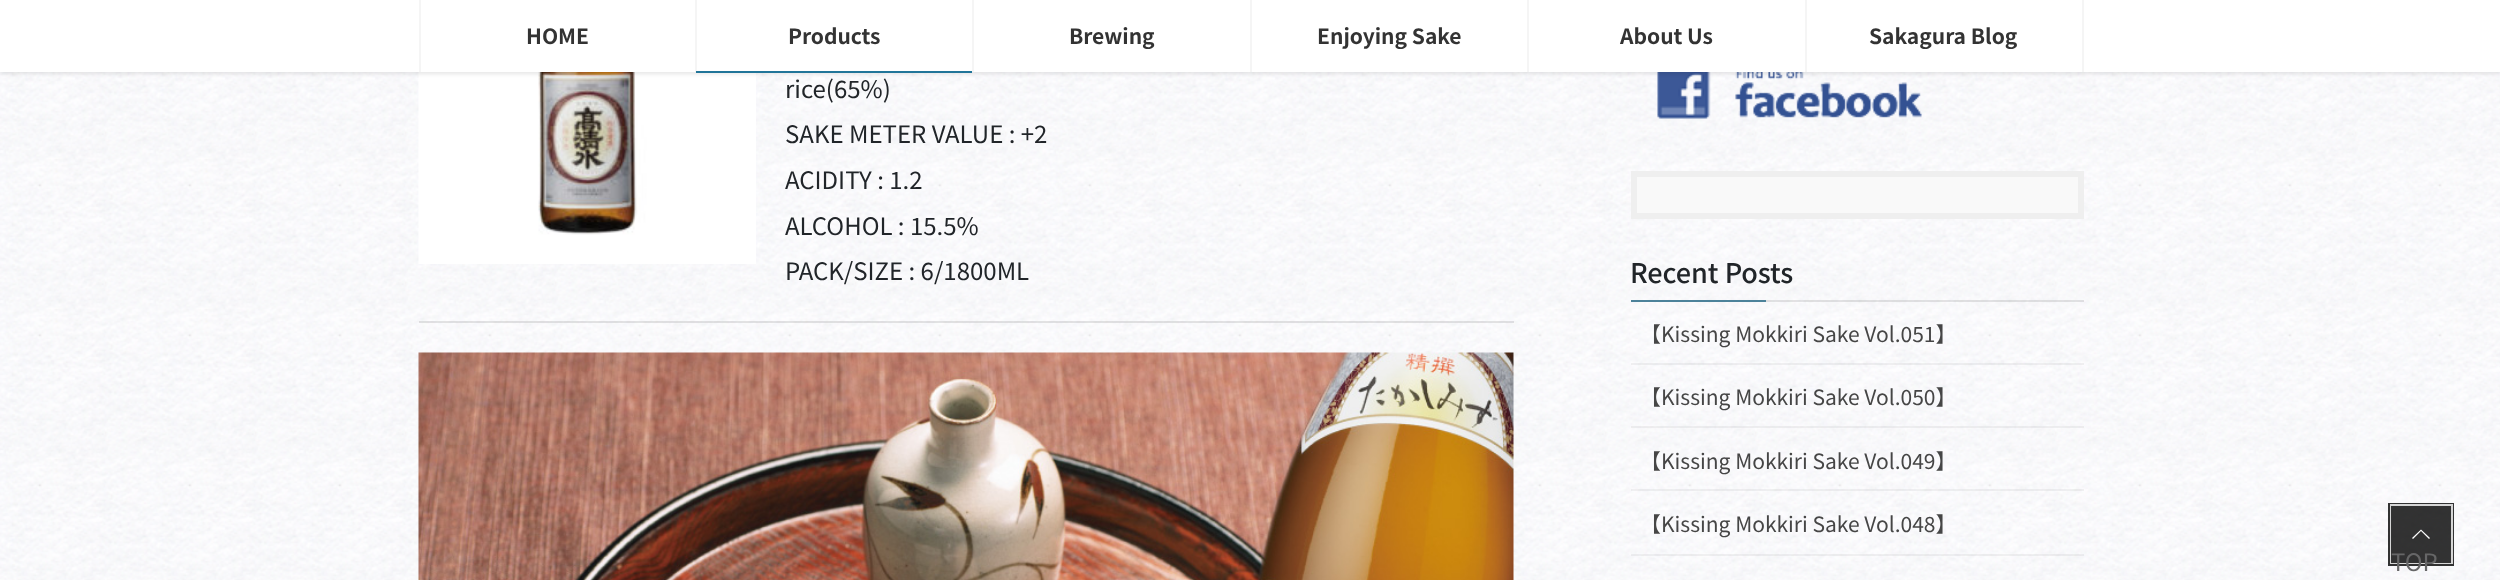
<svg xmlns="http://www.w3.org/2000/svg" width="2500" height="580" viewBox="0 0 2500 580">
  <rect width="100%" height="100%" fill="#fff"/>
  <image x="0" y="72" width="2500" height="508" href="img/1.png"/>
  <image x="418" y="72" width="338" height="192" href="img/2.png"/>
  <image x="1657" y="72" width="265" height="47" href="img/4.png"/>
  <path d="M0 2h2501v72H0z" fill="#0000001a" filter="blur(2px)"/>
  <path d="M0 0h2500v72H0z" fill="#fff"/>
  <path d="M419 0h2v72H419z" fill="#f5f5f5"/>
  <path d="M695 0h2v72H695z" fill="#f5f5f5"/>
  <path d="M696 71h276v2H696z" fill="#217599"/>
  <path d="M972 0h2v72H972z" fill="#f5f5f5"/>
  <path d="M1250 0h2v72H1250z" fill="#f5f5f5"/>
  <path d="M1527 0h2v72H1527z" fill="#f5f5f5"/>
  <path d="M2082 0h2v72H2082z" fill="#f5f5f5"/>
  <path d="M1805 0h2v72H1805z" fill="#f5f5f5"/>
  <path d="M419 321h1095v2H419z" fill="#0000001a"/>
  <image x="418" y="352" width="1096" height="228" href="img/3.png"/>
  <path d="M1634 174h447v42H1634z" fill="#f9f9f9" stroke="#efefef" stroke-width="6"/>
  <path d="M1766 300h318v2H1766z" fill="#0000001a"/>
  <path d="M1631 300h135v2H1631z" fill="#4c829a"/>
  <path d="M1631 363h453v2H1631z" fill="#0000000d"/>
  <path d="M1631 426h453v2H1631z" fill="#0000000d"/>
  <path d="M1631 489h453v2H1631z" fill="#0000000d"/>
  <path d="M1631 554h453v2H1631z" fill="#0000000d"/>
  <path d="M2389.5 504.5h63v60H2389.5z" fill="none" stroke="#000000cc" stroke-width="3"/>
  <path d="M2391 505h61v58H2391z" fill="none" stroke="#ffffffcc" stroke-width="2"/>
  <path d="M2391 506h60v57H2391z" fill="#000000cc"/>
  <path d="M2430 538L2429 539L2421 531L2413 539L2412 538L2421 529.5Z" fill="#fff"/>
  <g font-family="Noto Sans JP" font-size="21" font-weight="bold" fill="#333">
    <text x="526" y="44">HOME</text>
    <text x="788" y="44">Products</text>
    <text x="1069" y="44">Brewing</text>
    <text x="1317" y="44">Enjoying Sake</text>
    <text x="1620" y="44">About Us</text>
    <text x="1869" y="44">Sakagura Blog</text>
  </g>
  <g font-family="Noto Sans JP" font-size="24" fill="#212529">
    <text x="785" y="98">rice(65%)</text>
    <text x="785" y="143">SAKE METER VALUE : +2</text>
    <text x="785" y="189">ACIDITY : 1.2</text>
    <text x="785" y="235">ALCOHOL : 15.5%</text>
    <text x="785" y="280">PACK/SIZE : 6/1800ML</text>
  </g>
  <text x="1630" y="283" font-family="Noto Sans JP" font-size="27" font-weight="500" fill="#212529">Recent Posts</text>
  <g font-family="Noto Sans JP" font-size="21" fill="#464646">
    <text x="1640" y="342">【Kissing Mokkiri Sake Vol.051】</text>
    <text x="1640" y="405">【Kissing Mokkiri Sake Vol.050】</text>
    <text x="1640" y="469">【Kissing Mokkiri Sake Vol.049】</text>
    <text x="1640" y="532">【Kissing Mokkiri Sake Vol.048】</text>
  </g>
  <text x="2391" y="571" font-family="Noto Sans JP" font-size="24" fill="#666667">TOP</text>
</svg>
